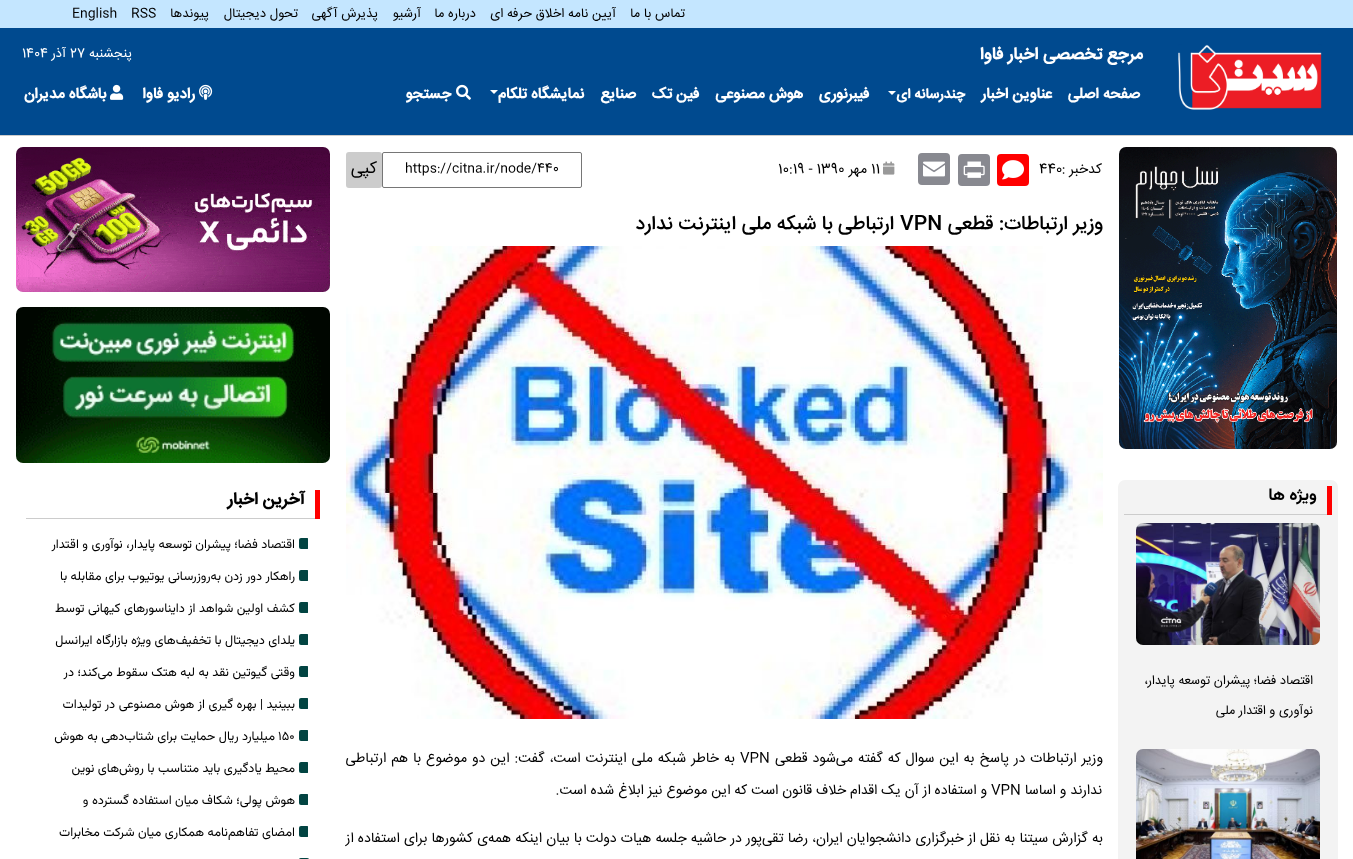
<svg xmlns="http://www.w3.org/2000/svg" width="1353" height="859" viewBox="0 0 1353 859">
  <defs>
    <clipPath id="clip1"><path d="M38 527h270v32H38z"/></clipPath>
    <clipPath id="clip2"><path d="M38 559h270v32H38z"/></clipPath>
    <clipPath id="clip3"><path d="M38 591h270v32H38z"/></clipPath>
    <clipPath id="clip4"><path d="M38 623h270v32H38z"/></clipPath>
    <clipPath id="clip5"><path d="M38 655h270v32H38z"/></clipPath>
    <clipPath id="clip6"><path d="M38 687h270v32H38z"/></clipPath>
    <clipPath id="clip7"><path d="M38 719h270v32H38z"/></clipPath>
    <clipPath id="clip8"><path d="M38 751h270v32H38z"/></clipPath>
    <clipPath id="clip9"><path d="M38 783h270v32H38z"/></clipPath>
    <clipPath id="clip10"><path d="M38 815h270v32H38z"/></clipPath>
  </defs>
  <rect width="100%" height="100%" fill="#fff"/>
  <path d="M0 0h1353v28H0z" fill="#c4e6ff"/>
  <path d="M0 28h1353v107H0z" fill="#004a8f"/>
  <path d="M0 135h1353v1H0z" fill="#ccc"/>
  <image x="1178" y="44" width="144" height="66" href="img/1.png"/>
  <path d="M888 91H896L892 95Z" fill="#fff"/>
  <path d="M490 90H498L494 94Z" fill="#fff"/>
  <image x="456" y="84" width="15" height="16" href="img/2.png"/>
  <image x="199" y="84" width="14" height="16" href="img/3.png"/>
  <image x="110" y="84" width="14" height="16" href="img/4.png"/>
  <image x="1119" y="147" width="218" height="302" href="img/5.png"/>
  <rect x="1118" y="480" width="220" height="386" rx="7" fill="#f3f3f3"/>
  <path d="M1327 486h5v29H1327z" fill="#f00"/>
  <path d="M1124 514h203v1H1124z" fill="#ccc"/>
  <image x="1136" y="523" width="184" height="122" href="img/6.png"/>
  <image x="1136" y="749" width="184" height="110" href="img/7.png"/>
  <rect x="997" y="154" width="32" height="32" rx="4" fill="#f00"/>
  <image x="1002" y="160" width="22" height="20" href="img/8.png"/>
  <rect x="958" y="154" width="32" height="32" rx="4" fill="#888990"/>
  <image x="963" y="161" width="22" height="17" href="img/9.png"/>
  <rect x="918" y="153" width="32" height="32" rx="4" fill="#888990"/>
  <image x="923" y="161" width="22" height="16" href="img/10.png"/>
  <image x="883" y="161" width="12" height="14" href="img/11.png"/>
  <rect x="382.5" y="152.5" width="199" height="35" rx="1.5" fill="none" stroke="#767676"/>
  <rect x="346" y="152" width="36" height="36" rx="3" fill="#ccc"/>
  <image x="346" y="246" width="757" height="473" href="img/12.png"/>
  <image x="16" y="147" width="314" height="145" href="img/13.png"/>
  <image x="16" y="307" width="314" height="156" href="img/14.png"/>
  <path d="M315 490h5v29H315z" fill="#f00"/>
  <path d="M26 518h289v1H26z" fill="#ccc"/>
  <g clip-path="url(#clip1)">
    <rect x="299" y="538" width="10" height="11" rx="2" fill="#024442"/>
  </g>
  <g clip-path="url(#clip2)">
    <rect x="299" y="570" width="10" height="11" rx="2" fill="#024442"/>
  </g>
  <g clip-path="url(#clip3)">
    <rect x="299" y="602" width="10" height="11" rx="2" fill="#024442"/>
  </g>
  <g clip-path="url(#clip4)">
    <rect x="299" y="634" width="10" height="11" rx="2" fill="#024442"/>
  </g>
  <g clip-path="url(#clip5)">
    <rect x="299" y="666" width="10" height="11" rx="2" fill="#024442"/>
  </g>
  <g clip-path="url(#clip6)">
    <rect x="299" y="698" width="10" height="11" rx="2" fill="#024442"/>
  </g>
  <g clip-path="url(#clip7)">
    <rect x="299" y="730" width="10" height="11" rx="2" fill="#024442"/>
  </g>
  <g clip-path="url(#clip8)">
    <rect x="299" y="762" width="10" height="11" rx="2" fill="#024442"/>
  </g>
  <g clip-path="url(#clip9)">
    <rect x="299" y="794" width="10" height="11" rx="2" fill="#024442"/>
  </g>
  <g clip-path="url(#clip10)">
    <rect x="299" y="826" width="10" height="11" rx="2" fill="#024442"/>
  </g>
  <rect x="299" y="858" width="10" height="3" rx="2" fill="#024442"/>
  <g font-family="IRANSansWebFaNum" font-size="13" direction="rtl" fill="#000">
    <text x="685" y="17">تماس با ما</text>
    <text x="616" y="17">آیین نامه اخلاق حرفه ای</text>
    <text x="476" y="17">درباره ما</text>
    <text x="421" y="17">آرشیو</text>
    <text x="378" y="17">پذیرش آگهی</text>
    <text x="298" y="17">تحول دیجیتال</text>
    <text x="209" y="17">پیوندها</text>
  </g>
  <g font-family="IRANSansWebFaNum" font-size="13" fill="#000">
    <text x="131" y="17">RSS</text>
    <text x="72" y="17">English</text>
  </g>
  <text x="1143" y="59" font-family="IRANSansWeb" font-size="17" font-weight="bold" direction="rtl" fill="#fff">مرجع تخصصی اخبار فاوا</text>
  <text x="132" y="57" font-family="IRANSansWebFaNum" font-size="13" direction="rtl" fill="#fff">پنجشنبه</text>
  <text x="70" y="57" font-family="IRANSansWebFaNum" font-size="13" fill="#fff">27</text>
  <text x="66" y="57" font-family="IRANSansWebFaNum" font-size="13" direction="rtl" fill="#fff">آذر</text>
  <text x="22" y="57" font-family="IRANSansWebFaNum" font-size="13" fill="#fff">1404</text>
  <g font-family="IRANSansWeb" font-size="15" font-weight="bold" direction="rtl" fill="#fff">
    <text x="1140" y="98">صفحه اصلی</text>
    <text x="1052" y="98">عناوین اخبار</text>
  </g>
  <text x="965" y="98" font-family="IRANSansWeb" font-size="14" font-weight="bold" direction="rtl" fill="#fff">چندرسانه ای</text>
  <g font-family="IRANSansWeb" font-size="15" font-weight="bold" direction="rtl" fill="#fff">
    <text x="869" y="98">فیبرنوری</text>
    <text x="803" y="98">هوش مصنوعی</text>
    <text x="699" y="98">فین تک</text>
    <text x="636" y="98">صنایع</text>
    <text x="584" y="98">نمایشگاه تلکام</text>
    <text x="451" y="98">جستجو</text>
    <text x="195" y="98">رادیو فاوا</text>
    <text x="106" y="98">باشگاه مدیران</text>
  </g>
  <text x="1317" y="500" font-family="Vazirmatn" font-size="17" font-weight="bold" direction="rtl" fill="#000">ویژه ها</text>
  <g font-family="IRANSansWebFaNum" font-size="12.75" direction="rtl" fill="#000">
    <text x="1313" y="684">اقتصاد فضا؛ پیشران توسعه پایدار،</text>
    <text x="1313" y="714">نوآوری و اقتدار ملی</text>
  </g>
  <text x="1102" y="173" font-family="IRANSansWebFaNum" font-size="14" direction="rtl" fill="#000">کدخبر :</text>
  <g font-family="IRANSansWebFaNum" font-size="14" fill="#000">
    <text x="1039" y="173">440</text>
    <text x="871" y="173">11</text>
  </g>
  <text x="867" y="173" font-family="IRANSansWebFaNum" font-size="14" direction="rtl" fill="#000">مهر</text>
  <text x="778" y="173" font-family="IRANSansWebFaNum" font-size="14" fill="#000">10:19 - 1390</text>
  <text x="405" y="172" font-family="IRANSansWebFaNum" font-size="13" fill="#000">https://citna.ir/node/440</text>
  <text x="377" y="173" font-family="IRANSansWebFaNum" font-size="17" direction="rtl" fill="#000">کپی</text>
  <text x="1103" y="229" font-family="IRANSansWeb" font-size="19.6" font-weight="500" direction="rtl" fill="#000">وزیر ارتباطات: قطعی</text>
  <text x="900" y="229" font-family="IRANSansWeb" font-size="19.6" font-weight="500" fill="#000">VPN</text>
  <text x="894" y="229" font-family="IRANSansWeb" font-size="19.6" font-weight="500" direction="rtl" fill="#000">ارتباطی با شبکه ملی اینترنت ندارد</text>
  <text x="1103" y="762" word-spacing="1" font-family="IRANSansWebFaNum" font-size="14" direction="rtl" fill="#000">وزیر ارتباطات در پاسخ به این سوال که گفته می‌شود قطعی</text>
  <text x="740" y="762" font-family="IRANSansWebFaNum" font-size="14" fill="#000">VPN</text>
  <g font-family="IRANSansWebFaNum" font-size="14" direction="rtl" fill="#000">
    <text x="735" y="762" word-spacing="1">به خاطر شبکه ملی اینترنت است، گفت: این دو موضوع با هم ارتباطی</text>
    <text x="1102" y="794">ندارند و اساسا</text>
  </g>
  <text x="991" y="794" font-family="IRANSansWebFaNum" font-size="14" fill="#000">VPN</text>
  <g font-family="IRANSansWebFaNum" font-size="14" direction="rtl" fill="#000">
    <text x="987" y="794">و استفاده از آن یک اقدام خلاف قانون است که این موضوع نیز ابلاغ شده است.</text>
    <text x="1103" y="842" word-spacing="0.2">به گزارش سیتنا به نقل از خبرگزاری دانشجوایان ایران، رضا تقی‌پور در حاشیه جلسه هیات دولت با بیان اینکه همه‌ی کشورها برای استفاده از</text>
  </g>
  <text x="305" y="504" font-family="IRANSansWeb" font-size="17" font-weight="bold" direction="rtl" fill="#000">آخرین اخبار</text>
  <g font-family="Vazirmatn" font-size="12.75" direction="rtl" fill="#000">
    <text x="295" y="548">اقتصاد فضا؛ پیشران توسعه پایدار، نوآوری و اقتدار</text>
    <text x="295" y="580">راهکار دور زدن به‌روزرسانی یوتیوب برای مقابله با</text>
    <text x="295" y="612">کشف اولین شواهد از دایناسورهای کیهانی توسط</text>
    <text x="295" y="644">یلدای دیجیتال با تخفیف‌های ویژه بازارگاه ایرانسل</text>
    <text x="295" y="676">وقتی گیوتین نقد به لبه هتک سقوط می‌کند؛ در</text>
    <text x="295" y="708">ببینید | بهره گیری از هوش مصنوعی در تولیدات</text>
  </g>
  <text x="278" y="740" font-family="Vazirmatn" font-size="12.75" fill="#000">۱۵۰</text>
  <g font-family="Vazirmatn" font-size="12.75" direction="rtl" fill="#000">
    <text x="275" y="740">میلیارد ریال حمایت برای شتاب‌دهی به هوش</text>
    <text x="295" y="772">محیط یادگیری باید متناسب با روش‌های نوین</text>
    <text x="295" y="804">هوش پولی؛ شکاف میان استفاده‌ گسترده و</text>
    <text x="295" y="836">امضای تفاهم‌نامه همکاری میان شرکت مخابرات</text>
  </g>
</svg>
